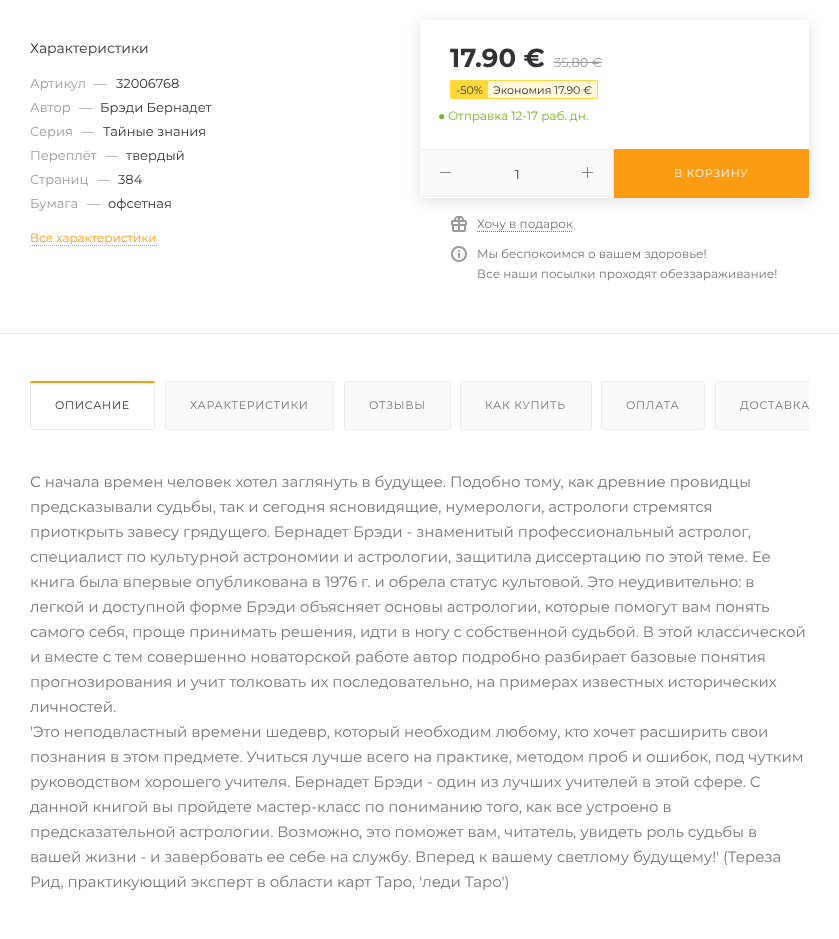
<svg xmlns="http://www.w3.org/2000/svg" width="839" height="939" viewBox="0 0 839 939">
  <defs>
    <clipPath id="clip1"><path d="M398 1H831V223H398ZM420 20H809V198H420Z" clip-rule="evenodd"/></clipPath>
    <clipPath id="clip2"><path d="M30 381h779v49H30z"/></clipPath>
  </defs>
  <rect width="100%" height="100%" fill="#fff"/>
  <path d="M0 333h839v1H0z" fill="#ececec"/>
  <path d="M30 245.5H157" fill="none" stroke="#fd9c12" stroke-dasharray="1 1"/>
  <g clip-path="url(#clip1)">
    <path d="M420 23h389v178H420z" fill="#0000001f" filter="blur(7px)"/>
  </g>
  <path d="M554 62h48v1H554z" fill="#999"/>
  <rect x="450" y="80" width="148" height="19" rx="2" fill="#ffd83a"/>
  <rect x="488" y="81" width="109" height="17" rx="1" fill="#fff8db"/>
  <path d="M420 149h193v48H420z" fill="#fafafa"/>
  <path d="M420 149H614L613 150H421Z" fill="#eee"/>
  <path d="M613 149h1v48H613z" fill="#eee"/>
  <path d="M614 197H420L421 196H613Z" fill="#eee"/>
  <rect x="440" y="172" width="11" height="1" rx="0.5" fill="#7d7d7d"/>
  <image x="582" y="167" width="11" height="11" href="img/1.png"/>
  <path d="M614 149H809V195C809 196.5 807.5 198 806 198H614Z" fill="#fd9c12"/>
  <path d="M614 149V198H806C808 198 809 197 809 195V149ZM615 150V197H808V150Z" fill="#fd9c12" fill-rule="evenodd"/>
  <image x="451" y="216" width="16" height="16" href="img/2.png"/>
  <path d="M477 231.5H572" fill="none" stroke="#777" stroke-dasharray="1 1"/>
  <image x="451" y="246" width="16" height="16" href="img/3.png"/>
  <rect x="30.5" y="381.5" width="124" height="48" rx="2.5" fill="#fafafa" stroke="#ececec"/>
  <rect x="31" y="382" width="123" height="47" rx="3" fill="#fff"/>
  <path d="M32 381H153C154 381 155 382 155 383H30C30 382 31 381 32 381Z" fill="#fd9c12"/>
  <rect x="165.5" y="381.5" width="168" height="48" rx="2.5" fill="#fafafa" stroke="#ececec"/>
  <rect x="344.5" y="381.5" width="106" height="48" rx="2.5" fill="#fafafa" stroke="#ececec"/>
  <rect x="460.5" y="381.5" width="131" height="48" rx="2.5" fill="#fafafa" stroke="#ececec"/>
  <rect x="601.5" y="381.5" width="103" height="48" rx="2.5" fill="#fafafa" stroke="#ececec"/>
  <path d="M718 381H809V430H718C716.5 430 715 428.5 715 427V384C715 382.5 716.5 381 718 381Z" fill="#fafafa"/>
  <g clip-path="url(#clip2)">
    <rect x="715.5" y="381.5" width="119" height="48" rx="2.5" fill="none" stroke="#ececec"/>
  </g>
  <text x="30" y="53" font-family="Montserrat" font-size="14" fill="#333">Характеристики</text>
  <g font-family="Montserrat" font-size="13" fill="#999">
    <text x="30" y="88">Артикул</text>
    <text x="94" y="88">—</text>
  </g>
  <text x="116" y="88" font-family="Montserrat" font-size="13" fill="#333">32006768</text>
  <g font-family="Montserrat" font-size="13" fill="#999">
    <text x="30" y="112">Автор</text>
    <text x="79" y="112">—</text>
  </g>
  <text x="100" y="112" font-family="Montserrat" font-size="13" fill="#333">Брэди Бернадет</text>
  <g font-family="Montserrat" font-size="13" fill="#999">
    <text x="30" y="136">Серия</text>
    <text x="81" y="136">—</text>
  </g>
  <text x="103" y="136" font-family="Montserrat" font-size="13" fill="#333">Тайные знания</text>
  <g font-family="Montserrat" font-size="13" fill="#999">
    <text x="30" y="160">Переплёт</text>
    <text x="105" y="160">—</text>
  </g>
  <text x="126" y="160" font-family="Montserrat" font-size="13" fill="#333">твердый</text>
  <g font-family="Montserrat" font-size="13" fill="#999">
    <text x="30" y="184">Страниц</text>
    <text x="97" y="184">—</text>
  </g>
  <text x="118" y="184" font-family="Montserrat" font-size="13" fill="#333">384</text>
  <g font-family="Montserrat" font-size="13" fill="#999">
    <text x="30" y="208">Бумага</text>
    <text x="87" y="208">—</text>
  </g>
  <text x="108" y="208" font-family="Montserrat" font-size="13" fill="#333">офсетная</text>
  <text x="30" y="242" font-family="Montserrat" font-size="12" fill="#fd9c12">Все характеристики</text>
  <text x="450" y="67" font-family="Montserrat" font-size="26" font-weight="bold" fill="#333">17.90 €</text>
  <text x="554" y="67" font-family="Montserrat" font-size="13" fill="#999">35.80 €</text>
  <g font-family="Montserrat" font-size="11" fill="#333">
    <text x="456" y="94">-50%</text>
    <text x="493" y="94">Экономия 17.90 €</text>
  </g>
  <text x="438" y="120" font-family="Liberation Sans" font-size="12" fill="#77b527">●</text>
  <text x="448" y="120" font-family="Montserrat" font-size="12" fill="#77b527">Отправка 12-17 раб. дн.</text>
  <text x="515" y="179" font-family="Montserrat" font-size="13" fill="#333">1</text>
  <text x="674" y="177" font-family="Montserrat" font-size="11" letter-spacing="0.75" fill="#fff">В КОРЗИНУ</text>
  <g font-family="Montserrat" font-size="12" fill="#777">
    <text x="477" y="228">Хочу в подарок</text>
    <text x="477" y="258">Мы беспокоимся о вашем здоровье!</text>
    <text x="477" y="278">Все наши посылки проходят обеззараживание!</text>
  </g>
  <text x="55" y="409" font-family="Montserrat" font-size="11" letter-spacing="0.75" fill="#333">ОПИСАНИЕ</text>
  <g font-family="Montserrat" font-size="11" letter-spacing="0.75" fill="#777">
    <text x="190" y="409">ХАРАКТЕРИСТИКИ</text>
    <text x="369" y="409">ОТЗЫВЫ</text>
    <text x="485" y="409">КАК КУПИТЬ</text>
    <text x="626" y="409">ОПЛАТА</text>
    <text x="740" y="409">ДОСТАВКА</text>
  </g>
  <g font-family="Montserrat" font-size="15" fill="#777">
    <text x="30" y="487">С начала времен человек хотел заглянуть в будущее. Подобно тому, как древние провидцы</text>
    <text x="30" y="512">предсказывали судьбы, так и сегодня ясновидящие, нумерологи, астрологи стремятся</text>
    <text x="30" y="537">приоткрыть завесу грядущего. Бернадет Брэди - знаменитый профессиональный астролог,</text>
    <text x="30" y="562">специалист по культурной астрономии и астрологии, защитила диссертацию по этой теме. Ее</text>
    <text x="30" y="587">книга была впервые опубликована в 1976 г. и обрела статус культовой. Это неудивительно: в</text>
    <text x="30" y="612">легкой и доступной форме Брэди объясняет основы астрологии, которые помогут вам понять</text>
    <text x="30" y="637">самого себя, проще принимать решения, идти в ногу с собственной судьбой. В этой классической</text>
    <text x="30" y="662">и вместе с тем совершенно новаторской работе автор подробно разбирает базовые понятия</text>
    <text x="30" y="687">прогнозирования и учит толковать их последовательно, на примерах известных исторических</text>
    <text x="30" y="712">личностей.</text>
    <text x="30" y="737">'Это неподвластный времени шедевр, который необходим любому, кто хочет расширить свои</text>
    <text x="30" y="762">познания в этом предмете. Учиться лучше всего на практике, методом проб и ошибок, под чутким</text>
    <text x="30" y="787">руководством хорошего учителя. Бернадет Брэди - один из лучших учителей в этой сфере. С</text>
    <text x="30" y="812">данной книгой вы пройдете мастер-класс по пониманию того, как все устроено в</text>
    <text x="30" y="837">предсказательной астрологии. Возможно, это поможет вам, читатель, увидеть роль судьбы в</text>
    <text x="30" y="862">вашей жизни - и завербовать ее себе на службу. Вперед к вашему светлому будущему!' (Тереза</text>
    <text x="30" y="887">Рид, практикующий эксперт в области карт Таро, 'леди Таро')</text>
  </g>
</svg>
